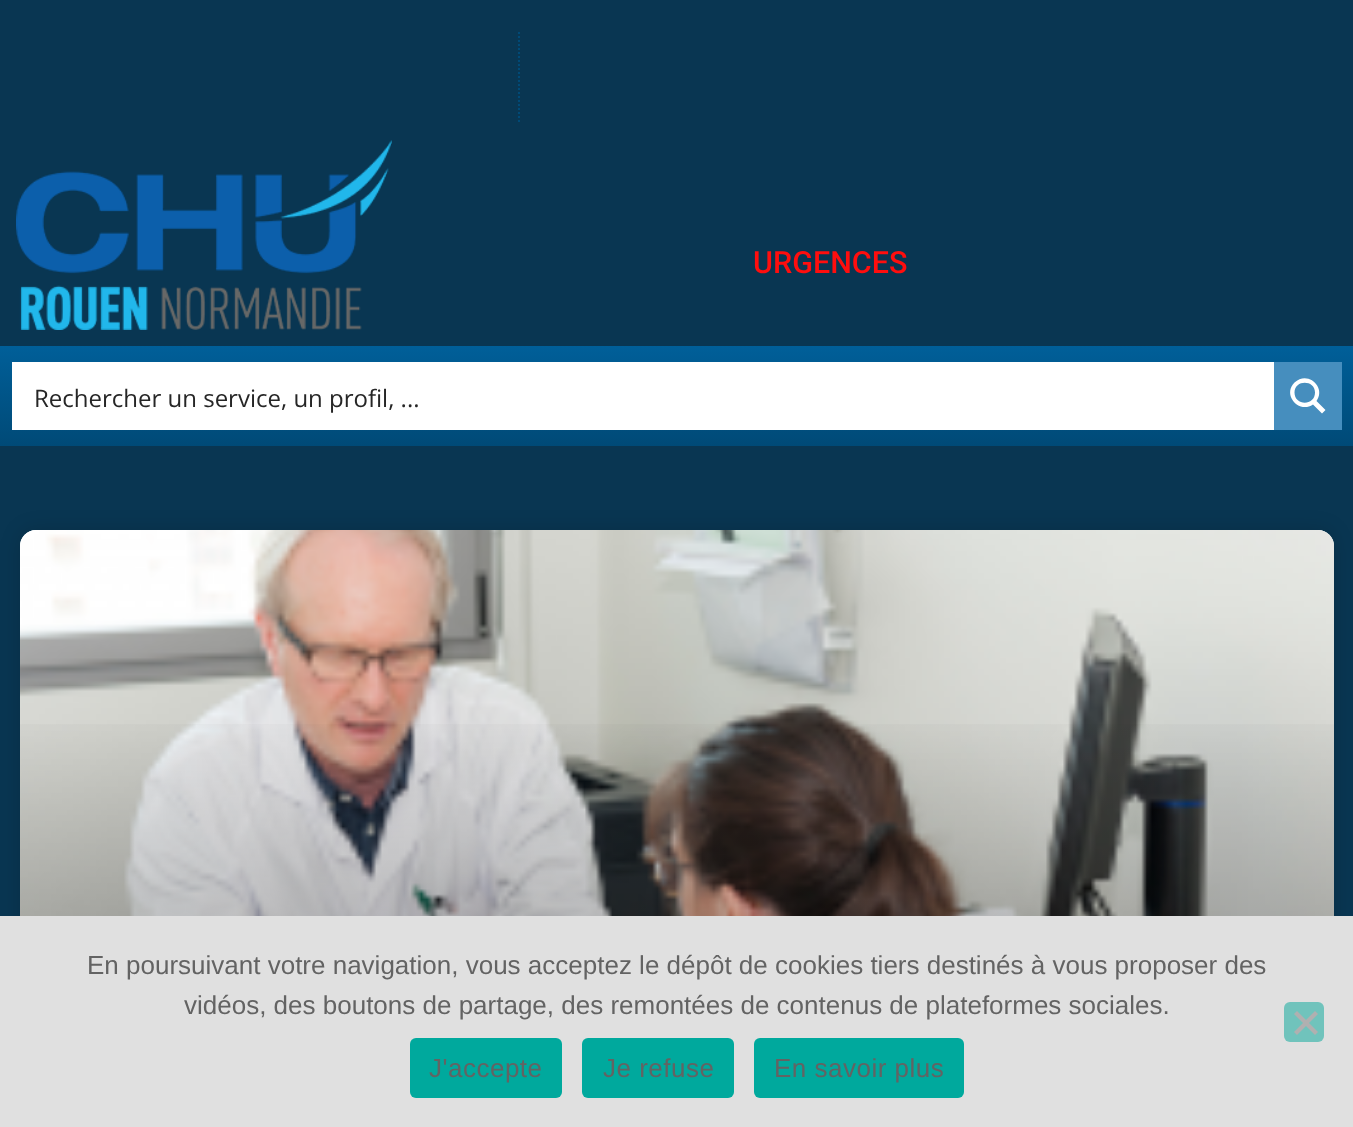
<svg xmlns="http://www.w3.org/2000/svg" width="1353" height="1127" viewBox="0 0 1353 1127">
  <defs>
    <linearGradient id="g1" gradientUnits="userSpaceOnUse" x1="677" y1="346" x2="677" y2="446"><stop offset="0" stop-color="#005f99"/><stop offset="1" stop-color="#004a77"/></linearGradient>
    <linearGradient id="g2" gradientUnits="userSpaceOnUse" x1="677" y1="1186" x2="677" y2="530"><stop offset="0" stop-color="#000" stop-opacity="0.35"/><stop offset="0.75" stop-color="#000" stop-opacity="0"/></linearGradient>
  </defs>
  <rect width="100%" height="100%" fill="#093652"/>
  <path d="M519 32V122" fill="none" stroke="#004a77" stroke-width="2" stroke-dasharray="2 2"/>
  <image x="16" y="140" width="376" height="190" href="img/1.png"/>
  <path d="M0 346h1353v100H0z" fill="url(#g1)"/>
  <path d="M12 362h1262v68H12z" fill="#fff"/>
  <path d="M1274 362h68v68H1274z" fill="#468ebe"/>
  <path d="M1325.5 410L1316.5 401C1326.5 387 1307.5 370 1294.5 382.5C1282 395 1299 414 1313 404.5L1322 413.5ZM1294.5 392.5C1294.5 379.5 1315 379.5 1315 392.5C1315 406 1294.5 406 1294.5 392.5Z" fill="#fff"/>
  <rect x="20" y="530" width="1314" height="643" rx="16" fill="#00000026" filter="blur(10px)"/>
  <rect x="20" y="530" width="1314" height="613" rx="16" fill="#f8fcfd"/>
  <image x="20" y="530" width="1314" height="386" href="img/2.png"/>
  <path d="M20 724h1314v192H20z" fill="url(#g2)"/>
  <path d="M0 916h1353v211H0z" fill="#e0e0e0"/>
  <rect x="1284" y="1002" width="40" height="40" rx="6" fill="#70c3bc"/>
  <path d="M1315 1011L1318 1014L1297 1035L1294 1032Z" fill="#b0b0b0"/>
  <path d="M1294 1014L1297 1011L1318 1032L1315 1035Z" fill="#b0b0b0"/>
  <rect x="410" y="1038" width="152" height="60" rx="6" fill="#00a99d"/>
  <rect x="582" y="1038" width="152" height="60" rx="6" fill="#00a99d"/>
  <rect x="754" y="1038" width="210" height="60" rx="6" fill="#00a99d"/>
  <text x="753" y="273" font-family="Roboto" font-size="30.5" font-weight="500" fill="#ff0e0e">URGENCES</text>
  <text x="34" y="407" font-family="Open Sans" font-size="24" fill="#262626">Rechercher un service, un profil, ...</text>
  <g font-family="Liberation Sans" font-size="26" fill="#636363">
    <text x="87" y="974">En poursuivant votre navigation, vous acceptez le dépôt de cookies tiers destinés à vous proposer des</text>
    <text x="184" y="1014">vidéos, des boutons de partage, des remontées de contenus de plateformes sociales.</text>
  </g>
  <g font-family="Liberation Sans" font-size="26" letter-spacing="0.5" fill="#636363">
    <text x="429" y="1077">J'accepte</text>
    <text x="603" y="1077">Je refuse</text>
    <text x="774" y="1077">En savoir plus</text>
  </g>
</svg>
